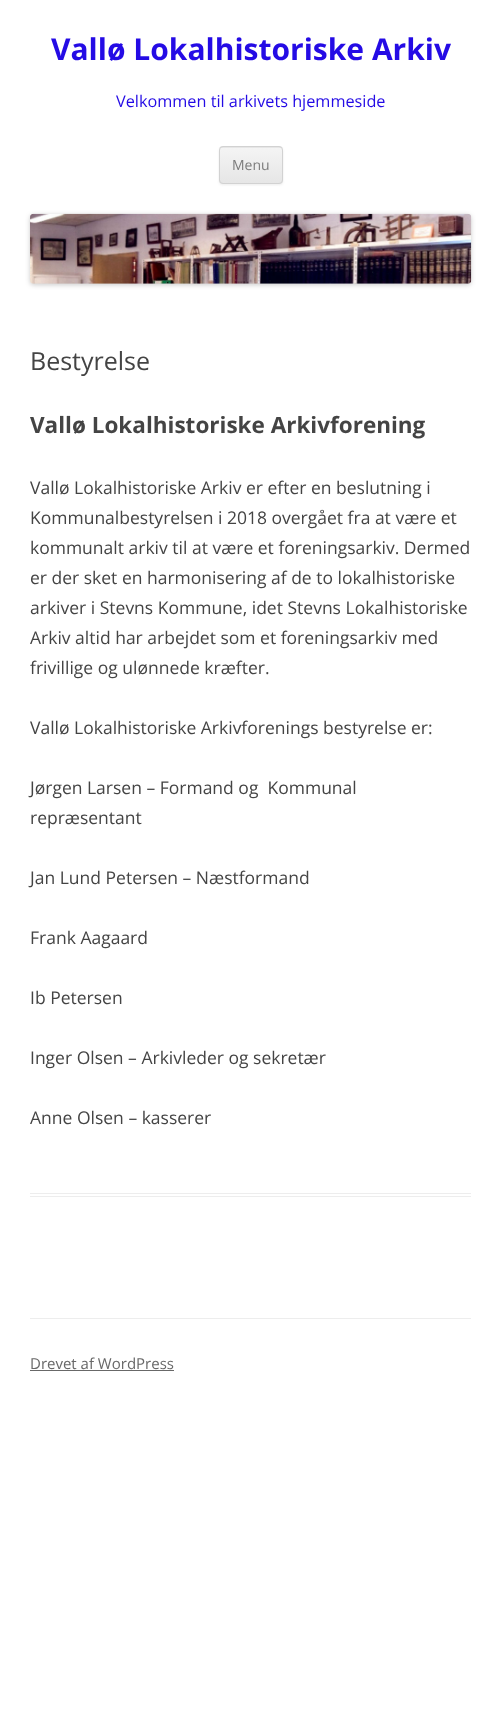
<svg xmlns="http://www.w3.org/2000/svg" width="501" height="1712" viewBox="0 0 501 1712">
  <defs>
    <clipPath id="clip1"><rect x="219" y="146" width="64" height="38" rx="4"/></clipPath>
    <linearGradient id="g1" gradientUnits="userSpaceOnUse" x1="251" y1="148" x2="251" y2="183"><stop offset="0" stop-color="#f4f4f4"/><stop offset="1" stop-color="#e6e6e6"/></linearGradient>
  </defs>
  <rect width="100%" height="100%" fill="#fff"/>
  <rect x="219" y="148" width="64" height="37" rx="4" fill="#4040401a" filter="blur(1px)"/>
  <rect x="219" y="146" width="64" height="38" rx="4" fill="#e6e6e6"/>
  <g clip-path="url(#clip1)">
    <path d="M219 148h64v35H219z" fill="url(#g1)"/>
  </g>
  <rect x="219.5" y="146.5" width="63" height="37" rx="3.5" fill="none" stroke="#d2d2d2"/>
  <rect x="30" y="215" width="441" height="70" rx="4" fill="#00000033" filter="blur(2.5px)"/>
  <image x="30" y="213" width="442" height="71" href="img/1.png"/>
  <path d="M30 1193h441v1H30z" fill="#ededed"/>
  <path d="M30 1196h441v1H30z" fill="#ededed"/>
  <path d="M30 1318h441v1H30z" fill="#ededed"/>
  <path d="M30 1370h144v1H30z" fill="#686868"/>
  <text x="51" y="60" font-family="Open Sans" font-size="30" font-weight="bold" fill="#240be5">Vallø Lokalhistoriske Arkiv</text>
  <text x="116" y="107" font-family="Open Sans" font-size="16.25" fill="#240be5">Velkommen til arkivets hjemmeside</text>
  <text x="232" y="170" font-family="Open Sans" font-size="14" fill="#7c7c7c">Menu</text>
  <text x="30" y="370" font-family="Open Sans" font-size="25" fill="#444">Bestyrelse</text>
  <text x="30" y="433" font-family="Open Sans" font-size="22.5" font-weight="bold" fill="#444">Vallø Lokalhistoriske Arkivforening</text>
  <g font-family="Open Sans" font-size="17.5" fill="#444">
    <text x="30" y="494">Vallø Lokalhistoriske Arkiv er efter en beslutning i</text>
    <text x="30" y="524">Kommunalbestyrelsen i 2018 overgået fra at være et</text>
    <text x="30" y="554">kommunalt arkiv til at være et foreningsarkiv. Dermed</text>
    <text x="30" y="584">er der sket en harmonisering af de to lokalhistoriske</text>
    <text x="30" y="614">arkiver i Stevns Kommune, idet Stevns Lokalhistoriske</text>
    <text x="30" y="644">Arkiv altid har arbejdet som et foreningsarkiv med</text>
    <text x="30" y="674">frivillige og ulønnede kræfter.</text>
    <text x="30" y="734">Vallø Lokalhistoriske Arkivforenings bestyrelse er:</text>
    <text x="30" y="794" xml:space="preserve">Jørgen Larsen – Formand og  Kommunal</text>
    <text x="30" y="824">repræsentant</text>
    <text x="30" y="884">Jan Lund Petersen – Næstformand</text>
    <text x="30" y="944">Frank Aagaard</text>
    <text x="30" y="1004">Ib Petersen</text>
    <text x="30" y="1064">Inger Olsen – Arkivleder og sekretær</text>
    <text x="30" y="1124">Anne Olsen – kasserer</text>
  </g>
  <text x="30" y="1369" font-family="Open Sans" font-size="15" fill="#686868">Drevet af WordPress</text>
</svg>
